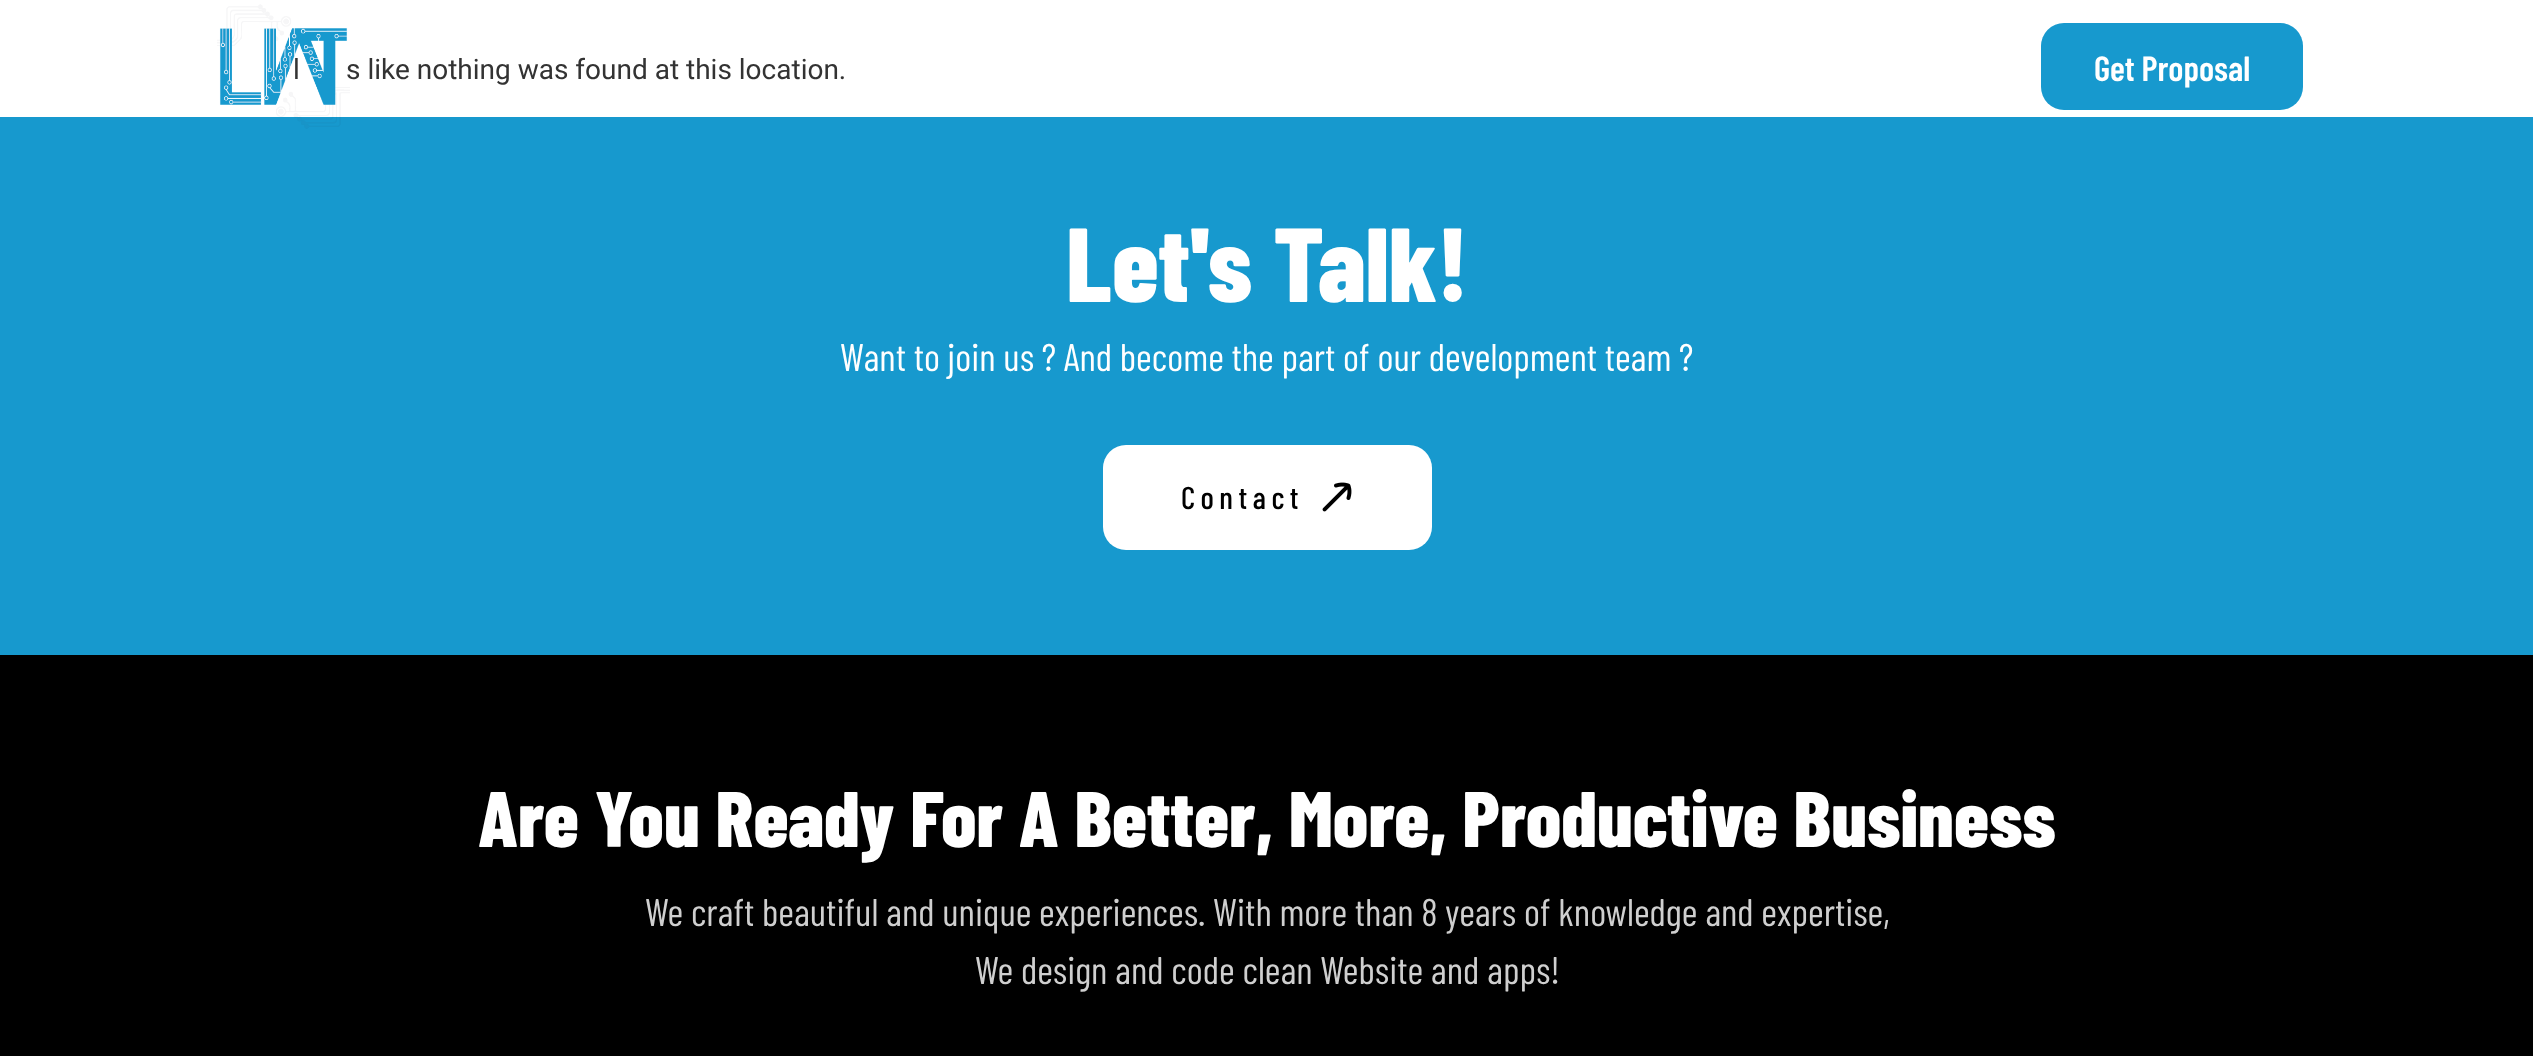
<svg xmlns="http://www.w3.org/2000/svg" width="2533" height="1056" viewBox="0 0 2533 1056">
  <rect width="100%" height="100%" fill="#fff"/>
  <rect x="2041" y="23" width="262" height="87" rx="23" fill="#1799ce"/>
  <path d="M0 117h2533v538H0z" fill="#1799ce"/>
  <rect x="1103" y="445" width="329" height="105" rx="23" fill="#fff"/>
  <image x="1322" y="482" width="30" height="30" href="img/2.png"/>
  <path d="M0 655h2533v401H0z" fill="#000"/>
  <g font-family="Roboto" font-size="28" fill="#333">
    <text x="293" y="79">l</text>
    <text x="346" y="79">s like nothing was found at this location.</text>
  </g>
  <image x="217" y="4" width="133" height="125" href="img/1.png"/>
  <text x="2094" y="81" font-family="Barlow Condensed" font-size="35" font-weight="600" fill="#fff">Get Proposal</text>
  <text x="1066" y="302" font-family="Barlow Condensed" font-size="105" font-weight="800" fill="#fff">Let's Talk!</text>
  <text x="840" y="371" font-family="Barlow Condensed" font-size="38.5" fill="#fff">Want to join us ? And become the part of our development team ?</text>
  <text x="1181" y="509" font-family="Barlow Condensed" font-size="31.5" font-weight="500" letter-spacing="5.5" fill="#000">Contact</text>
  <text x="478" y="847" font-family="Barlow Condensed" font-size="78.75" font-weight="800" fill="#fff">Are You Ready For A Better, More, Productive Business</text>
  <g font-family="Barlow Condensed" font-size="38.5" fill="#cfcfcf">
    <text x="645" y="926">We craft beautiful and unique experiences. With more than 8 years of knowledge and expertise,</text>
    <text x="975" y="984">We design and code clean Website and apps!</text>
  </g>
</svg>
